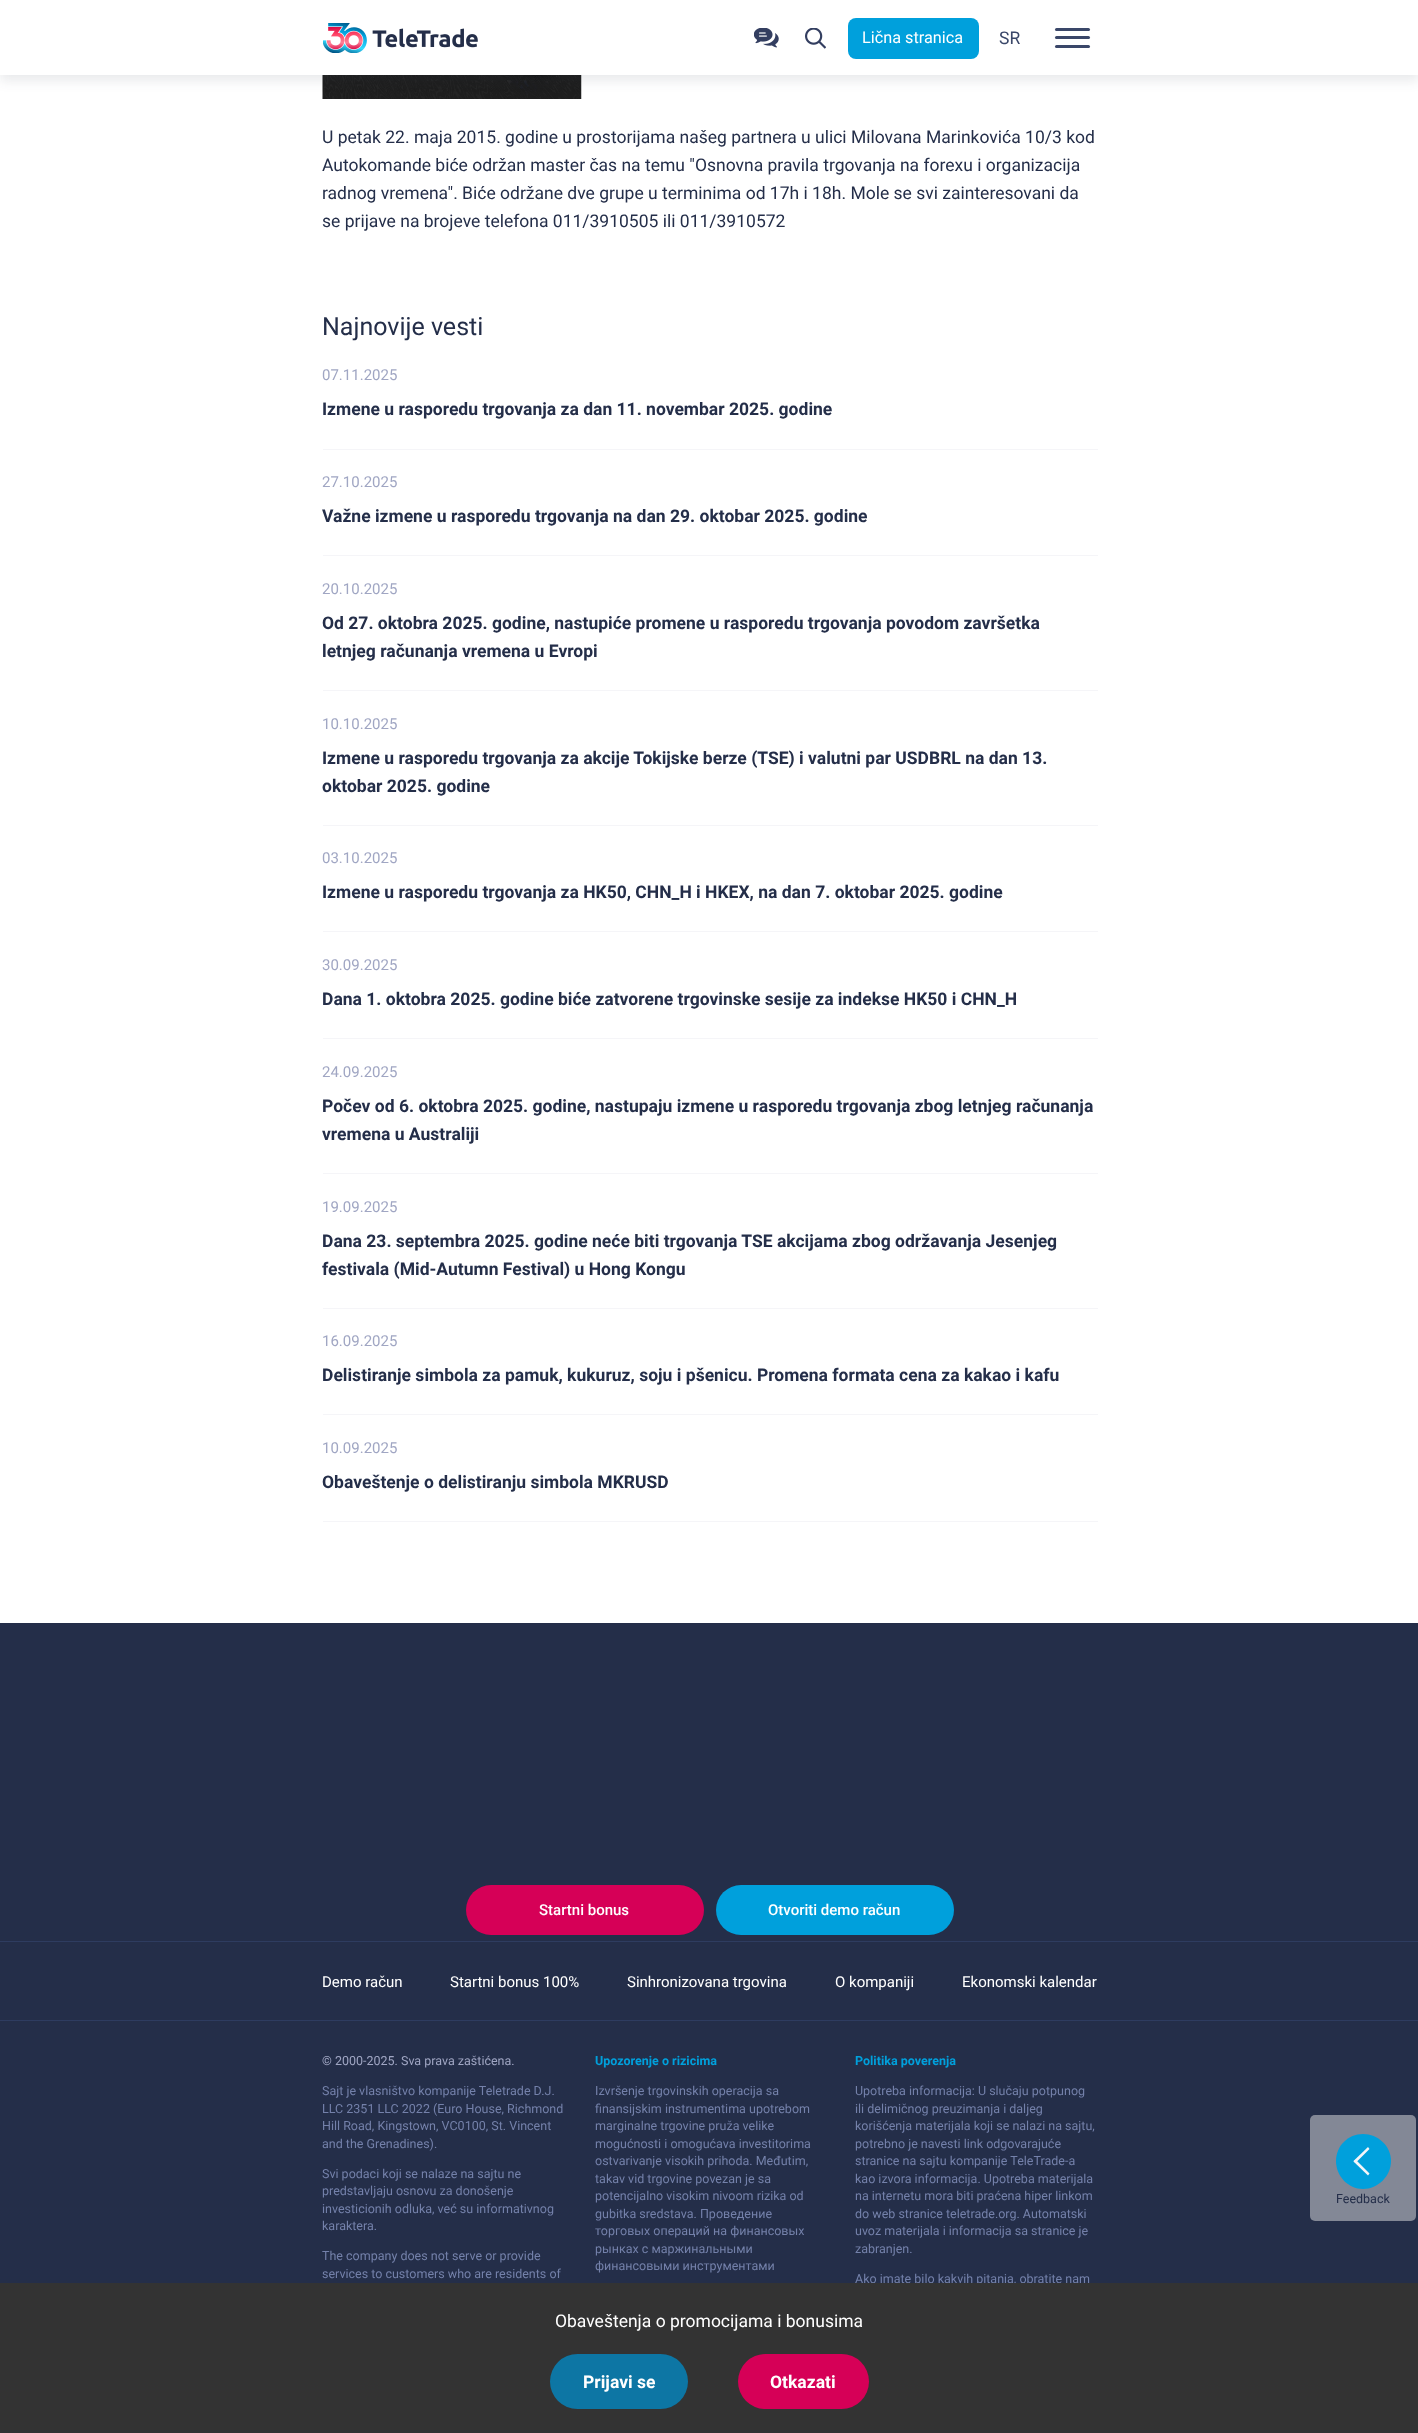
<svg xmlns="http://www.w3.org/2000/svg" width="1418" height="2433" viewBox="0 0 1418 2433">
  <rect width="100%" height="100%" fill="#fff"/>
  <image x="322" y="75" width="260" height="24" href="img/4.png"/>
  <path d="M0 6h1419v75H0z" fill="#242e491a" filter="blur(6px)"/>
  <path d="M0 0h1418v75H0z" fill="#fff"/>
  <image x="323" y="23" width="155" height="30" href="img/1.png"/>
  <image x="754" y="28" width="25" height="20" href="img/2.png"/>
  <image x="805" y="28" width="21" height="21" href="img/3.png"/>
  <rect x="848" y="18" width="131" height="41" rx="8" fill="#00a0dc"/>
  <rect x="1055" y="36" width="35" height="3" rx="1.5" fill="#3a4769"/>
  <rect x="1055" y="28" width="35" height="3" rx="1.5" fill="#3a4769"/>
  <rect x="1055" y="45" width="35" height="3" rx="1.5" fill="#3a4769"/>
  <path d="M323 449h775v1H323z" fill="#f5f5f8"/>
  <path d="M323 555h775v1H323z" fill="#f5f5f8"/>
  <path d="M323 690h775v1H323z" fill="#f5f5f8"/>
  <path d="M323 825h775v1H323z" fill="#f5f5f8"/>
  <path d="M323 931h775v1H323z" fill="#f5f5f8"/>
  <path d="M323 1038h775v1H323z" fill="#f5f5f8"/>
  <path d="M323 1173h775v1H323z" fill="#f5f5f8"/>
  <path d="M323 1308h775v1H323z" fill="#f5f5f8"/>
  <path d="M323 1414h775v1H323z" fill="#f5f5f8"/>
  <path d="M323 1521h775v1H323z" fill="#f5f5f8"/>
  <path d="M0 1623h1418v660H0z" fill="#242e49"/>
  <rect x="466" y="1885" width="238" height="50" rx="25" fill="#d60057"/>
  <rect x="716" y="1885" width="238" height="50" rx="25" fill="#00a0dc"/>
  <path d="M0 1941h1418v1H0z" fill="#2e3c60"/>
  <path d="M0 2020h1418v1H0z" fill="#2e3c60"/>
  <rect x="1310" y="2115" width="106" height="106" rx="5" fill="#838896"/>
  <path d="M1336 2161C1336 2146 1348 2134 1363 2134C1378 2134 1391 2146 1391 2161C1391 2176 1378 2189 1363 2189C1348 2189 1336 2176 1336 2161Z" fill="#00a0dc"/>
  <path d="M1368 2175.5L1353.5 2161.5L1355.5 2159.5L1369.5 2173.5Z" fill="#f5f5f8"/>
  <path d="M1353.5 2161L1368 2147L1369.5 2149L1355.5 2163Z" fill="#f5f5f8"/>
  <text x="862" y="43" font-family="Roboto" font-size="16.25" fill="#fff">Lična stranica</text>
  <text x="999" y="44" font-family="Roboto" font-size="17.5" fill="#3a4769">SR</text>
  <g font-family="Roboto" font-size="17.5" fill="#242e49">
    <text x="322" y="143">U petak 22. maja 2015. godine u prostorijama našeg partnera u ulici Milovana Marinkovića 10/3 kod</text>
    <text x="322" y="171">Autokomande biće održan master čas na temu "Osnovna pravila trgovanja na forexu i organizacija</text>
    <text x="322" y="199">radnog vremena". Biće održane dve grupe u terminima od 17h i 18h. Mole se svi zainteresovani da</text>
    <text x="322" y="227">se prijave na brojeve telefona 011/3910505 ili 011/3910572</text>
  </g>
  <text x="322" y="335" font-family="Roboto" font-size="25" fill="#242e49">Najnovije vesti</text>
  <text x="322" y="380" font-family="Roboto" font-size="15" fill="#a0a6c3">07.11.2025</text>
  <text x="322" y="415" font-family="Roboto" font-size="17.5" font-weight="bold" fill="#242e49">Izmene u rasporedu trgovanja za dan 11. novembar 2025. godine</text>
  <text x="322" y="487" font-family="Roboto" font-size="15" fill="#a0a6c3">27.10.2025</text>
  <text x="322" y="522" font-family="Roboto" font-size="17.5" font-weight="bold" fill="#242e49">Važne izmene u rasporedu trgovanja na dan 29. oktobar 2025. godine</text>
  <text x="322" y="594" font-family="Roboto" font-size="15" fill="#a0a6c3">20.10.2025</text>
  <g font-family="Roboto" font-size="17.5" font-weight="bold" fill="#242e49">
    <text x="322" y="629">Od 27. oktobra 2025. godine, nastupiće promene u rasporedu trgovanja povodom završetka</text>
    <text x="322" y="657">letnjeg računanja vremena u Evropi</text>
  </g>
  <text x="322" y="729" font-family="Roboto" font-size="15" fill="#a0a6c3">10.10.2025</text>
  <g font-family="Roboto" font-size="17.5" font-weight="bold" fill="#242e49">
    <text x="322" y="764">Izmene u rasporedu trgovanja za akcije Tokijske berze (TSE) i valutni par USDBRL na dan 13.</text>
    <text x="322" y="792">oktobar 2025. godine</text>
  </g>
  <text x="322" y="863" font-family="Roboto" font-size="15" fill="#a0a6c3">03.10.2025</text>
  <text x="322" y="898" font-family="Roboto" font-size="17.5" font-weight="bold" fill="#242e49">Izmene u rasporedu trgovanja za HK50, CHN_H i HKEX, na dan 7. oktobar 2025. godine</text>
  <text x="322" y="970" font-family="Roboto" font-size="15" fill="#a0a6c3">30.09.2025</text>
  <text x="322" y="1005" font-family="Roboto" font-size="17.5" font-weight="bold" fill="#242e49">Dana 1. oktobra 2025. godine biće zatvorene trgovinske sesije za indekse HK50 i CHN_H</text>
  <text x="322" y="1077" font-family="Roboto" font-size="15" fill="#a0a6c3">24.09.2025</text>
  <g font-family="Roboto" font-size="17.5" font-weight="bold" fill="#242e49">
    <text x="322" y="1112">Počev od 6. oktobra 2025. godine, nastupaju izmene u rasporedu trgovanja zbog letnjeg računanja</text>
    <text x="322" y="1140">vremena u Australiji</text>
  </g>
  <text x="322" y="1212" font-family="Roboto" font-size="15" fill="#a0a6c3">19.09.2025</text>
  <g font-family="Roboto" font-size="17.5" font-weight="bold" fill="#242e49">
    <text x="322" y="1247">Dana 23. septembra 2025. godine neće biti trgovanja TSE akcijama zbog održavanja Jesenjeg</text>
    <text x="322" y="1275">festivala (Mid-Autumn Festival) u Hong Kongu</text>
  </g>
  <text x="322" y="1346" font-family="Roboto" font-size="15" fill="#a0a6c3">16.09.2025</text>
  <text x="322" y="1381" font-family="Roboto" font-size="17.5" font-weight="bold" fill="#242e49">Delistiranje simbola za pamuk, kukuruz, soju i pšenicu. Promena formata cena za kakao i kafu</text>
  <text x="322" y="1453" font-family="Roboto" font-size="15" fill="#a0a6c3">10.09.2025</text>
  <text x="322" y="1488" font-family="Roboto" font-size="17.5" font-weight="bold" fill="#242e49">Obaveštenje o delistiranju simbola MKRUSD</text>
  <g font-family="Roboto" font-size="15" font-weight="500" fill="#fff">
    <text x="539" y="1915">Startni bonus</text>
    <text x="768" y="1915">Otvoriti demo račun</text>
  </g>
  <g font-family="Roboto" font-size="15" fill="#fff">
    <text x="322" y="1987">Demo račun</text>
    <text x="450" y="1987">Startni bonus 100%</text>
    <text x="627" y="1987">Sinhronizovana trgovina</text>
    <text x="835" y="1987">O kompaniji</text>
    <text x="962" y="1987">Ekonomski kalendar</text>
  </g>
  <text x="322" y="2065" font-family="Roboto" font-size="12.5" fill="#a0a6c3">© 2000-2025. Sva prava zaštićena.</text>
  <g font-family="Roboto" font-size="12.5" fill="#7481aa">
    <text x="322" y="2095">Sajt je vlasništvo kompanije Teletrade D.J.</text>
    <text x="322" y="2113">LLC 2351 LLC 2022 (Euro House, Richmond</text>
    <text x="322" y="2130">Hill Road, Kingstown, VC0100, St. Vincent</text>
    <text x="322" y="2148">and the Grenadines).</text>
    <text x="322" y="2178">Svi podaci koji se nalaze na sajtu ne</text>
    <text x="322" y="2195">predstavljaju osnovu za donošenje</text>
    <text x="322" y="2213">investicionih odluka, već su informativnog</text>
    <text x="322" y="2230">karaktera.</text>
    <text x="322" y="2260">The company does not serve or provide</text>
    <text x="322" y="2278">services to customers who are residents of</text>
  </g>
  <text x="595" y="2065" font-family="Roboto" font-size="12.5" font-weight="bold" fill="#00a0dc">Upozorenje o rizicima</text>
  <g font-family="Roboto" font-size="12.5" fill="#7481aa">
    <text x="595" y="2095">Izvršenje trgovinskih operacija sa</text>
    <text x="595" y="2113">finansijskim instrumentima upotrebom</text>
    <text x="595" y="2130">marginalne trgovine pruža velike</text>
    <text x="595" y="2148">mogućnosti i omogućava investitorima</text>
    <text x="595" y="2165">ostvarivanje visokih prihoda. Međutim,</text>
    <text x="595" y="2183">takav vid trgovine povezan je sa</text>
    <text x="595" y="2200">potencijalno visokim nivoom rizika od</text>
    <text x="595" y="2218">gubitka sredstava. Проведение</text>
    <text x="595" y="2235">торговых операций на финанcовых</text>
    <text x="595" y="2253">рынках c маржинальными</text>
    <text x="595" y="2270">финанcовыми инcтрументами</text>
  </g>
  <text x="855" y="2065" font-family="Roboto" font-size="12.5" font-weight="bold" fill="#00a0dc">Politika poverenja</text>
  <g font-family="Roboto" font-size="12.5" fill="#7481aa">
    <text x="855" y="2095">Upotreba informacija: U slučaju potpunog</text>
    <text x="855" y="2113">ili delimičnog preuzimanja i daljeg</text>
    <text x="855" y="2130">korišćenja materijala koji se nalazi na sajtu,</text>
    <text x="855" y="2148">potrebno je navesti link odgovarajuće</text>
    <text x="855" y="2165">stranice na sajtu kompanije TeleTrade-a</text>
    <text x="855" y="2183">kao izvora informacija. Upotreba materijala</text>
    <text x="855" y="2200">na internetu mora biti praćena hiper linkom</text>
    <text x="855" y="2218">do web stranice teletrade.org. Automatski</text>
    <text x="855" y="2235">uvoz materijala i informacija sa stranice je</text>
    <text x="855" y="2253">zabranjen.</text>
    <text x="855" y="2283">Ako imate bilo kakvih pitanja, obratite nam</text>
  </g>
  <text x="1336" y="2203" font-family="Roboto" font-size="12.5" fill="#242e49">Feedback</text>
  <path d="M0 2283h1418v150H0z" fill="#333"/>
  <text x="555" y="2327" font-family="Roboto" font-size="17.5" fill="#fff">Obaveštenja o promocijama i bonusima</text>
  <rect x="550" y="2354" width="138" height="55" rx="27.5" fill="#0d76a4"/>
  <text x="583" y="2388" font-family="Roboto" font-size="17.5" font-weight="bold" fill="#fff">Prijavi se</text>
  <rect x="738" y="2354" width="131" height="55" rx="27.5" fill="#d60057"/>
  <text x="770" y="2388" font-family="Roboto" font-size="17.5" font-weight="bold" fill="#fff">Otkazati</text>
</svg>
